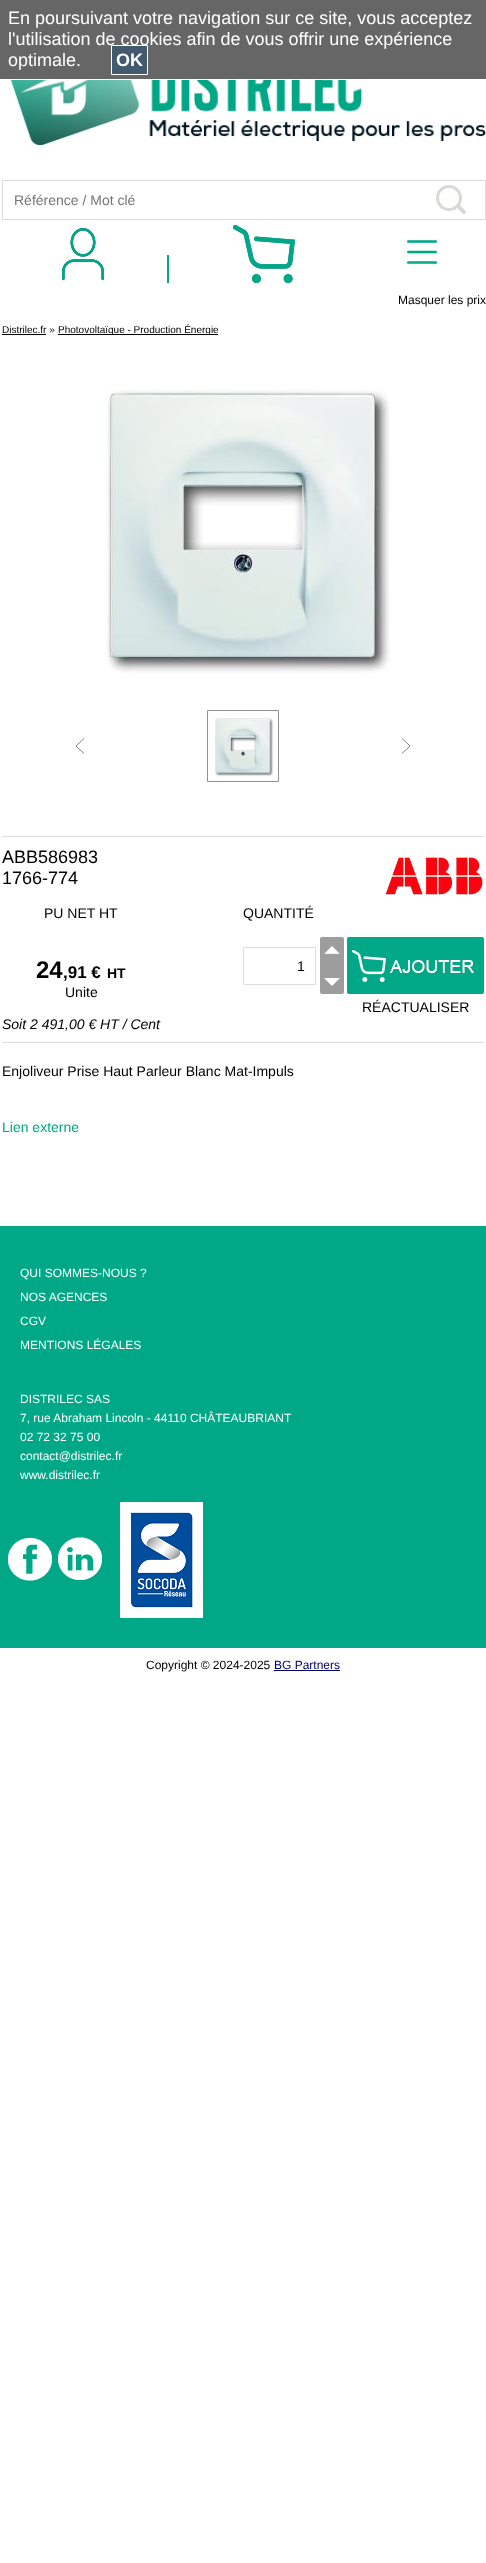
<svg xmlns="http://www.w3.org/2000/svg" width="486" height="2563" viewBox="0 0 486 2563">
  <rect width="100%" height="100%" fill="#fff"/>
  <path d="M0 0h486v79H0z" fill="#666"/>
  <image x="10" y="80" width="476" height="65" href="img/1.png"/>
  <path d="M2 180h484v1H2z" fill="#ddd"/>
  <path d="M485 180h1v40H485z" fill="#ddd"/>
  <path d="M2 219h484v1H2z" fill="#ddd"/>
  <path d="M2 180h1v40H2z" fill="#ddd"/>
  <image x="436" y="185" width="30" height="29" href="img/2.png"/>
  <image x="62" y="228" width="42" height="52" href="img/3.png"/>
  <image x="233" y="225" width="62" height="58" href="img/4.png"/>
  <image x="407" y="240" width="30" height="24" href="img/5.png"/>
  <path d="M167 255h2v28H167z" fill="#00a888"/>
  <path d="M2 334h44v1H2z" fill="#000"/>
  <path d="M58 334h160v1H58z" fill="#000"/>
  <image x="106" y="389" width="284" height="284" href="img/6.png"/>
  <path d="M84 738.5L76 746L84 753.5" fill="none" stroke="#000" stroke-width="0.5"/>
  <image x="215" y="718" width="59" height="59" href="img/7.png"/>
  <path d="M207.5 710.5h71v71H207.5z" fill="none" stroke="#919191"/>
  <path d="M402 738.5L410 746L402 753.5" fill="none" stroke="#000" stroke-width="0.5"/>
  <path d="M2 836h482v1H2z" fill="#ddd"/>
  <image x="384" y="857" width="99" height="39" href="img/8.png"/>
  <path d="M243.5 947.5h72v37H243.5z" fill="none" stroke="#ddd"/>
  <image x="320" y="937" width="24" height="29" href="img/9.png"/>
  <image x="347" y="937" width="137" height="57" href="img/10.png"/>
  <image x="320" y="966" width="24" height="28" href="img/11.png"/>
  <path d="M2 1042h482v1H2z" fill="#ddd"/>
  <path d="M0 1226h486v422H0z" fill="#00a888"/>
  <image x="8" y="1538" width="44" height="43" href="img/12.png"/>
  <image x="58" y="1537" width="44" height="43" href="img/13.png"/>
  <image x="120" y="1502" width="83" height="116" href="img/14.png"/>
  <path d="M274 1670h66v1H274z" fill="#006"/>
  <g font-family="Liberation Sans" font-size="18" fill="#fff">
    <text x="8" y="24">En poursuivant votre navigation sur ce site, vous acceptez</text>
    <text x="8" y="45">l'utilisation de cookies afin de vous offrir une expérience</text>
    <text x="8" y="66">optimale.</text>
  </g>
  <path d="M111.5 45.5h36v29H111.5z" fill="#425970" stroke="#fff"/>
  <text x="116" y="66" font-family="Liberation Sans" font-size="18" font-weight="bold" fill="#fff">OK</text>
  <text x="14" y="205" font-family="Liberation Sans" font-size="14" fill="#757575">Référence / Mot clé</text>
  <text x="398" y="304" font-family="Liberation Sans" font-size="12" fill="#000">Masquer les prix</text>
  <g font-family="Liberation Sans" font-size="10" fill="#000">
    <text x="2" y="333">Distrilec.fr »</text>
    <text x="58" y="333">Photovoltaïque - Production Énergie</text>
  </g>
  <g font-family="Liberation Sans" font-size="18" fill="#000">
    <text x="2" y="863">ABB586983</text>
    <text x="2" y="884">1766-774</text>
  </g>
  <text x="44" y="918" font-family="Liberation Sans" font-size="14" fill="#000">PU NET HT</text>
  <text x="36" y="978" font-family="Liberation Sans" font-size="24" font-weight="bold" fill="#000">24</text>
  <text x="63" y="978" font-family="Liberation Sans" font-size="17" font-weight="bold" fill="#000">,91 €</text>
  <text x="107" y="978" font-family="Liberation Sans" font-size="14" font-weight="bold" fill="#000">HT</text>
  <text x="65" y="997" font-family="Liberation Sans" font-size="14" fill="#000">Unite</text>
  <text x="2" y="1029" font-family="Liberation Sans" font-size="14" font-style="italic" fill="#000">Soit 2 491,00 € HT / Cent</text>
  <g font-family="Liberation Sans" font-size="14" fill="#000">
    <text x="243" y="918">QUANTITÉ</text>
    <text x="297" y="971">1</text>
    <text x="362" y="1012">RÉACTUALISER</text>
    <text x="2" y="1076">Enjoliveur Prise Haut Parleur Blanc Mat-Impuls</text>
  </g>
  <text x="2" y="1132" font-family="Liberation Sans" font-size="14" fill="#00a888">Lien externe</text>
  <g font-family="Liberation Sans" font-size="12" fill="#fff">
    <text x="20" y="1277">QUI SOMMES-NOUS ?</text>
    <text x="20" y="1301">NOS AGENCES</text>
    <text x="20" y="1325">CGV</text>
    <text x="20" y="1349">MENTIONS LÉGALES</text>
    <text x="20" y="1403">DISTRILEC SAS</text>
    <text x="20" y="1422">7, rue Abraham Lincoln - 44110 CHÂTEAUBRIANT</text>
    <text x="20" y="1441">02 72 32 75 00</text>
    <text x="20" y="1460">contact@distrilec.fr</text>
    <text x="20" y="1479">www.distrilec.fr</text>
  </g>
  <text x="146" y="1669" font-family="Liberation Sans" font-size="12" fill="#000">Copyright © 2024-2025</text>
  <text x="274" y="1669" font-family="Liberation Sans" font-size="12" fill="#006">BG Partners</text>
</svg>
